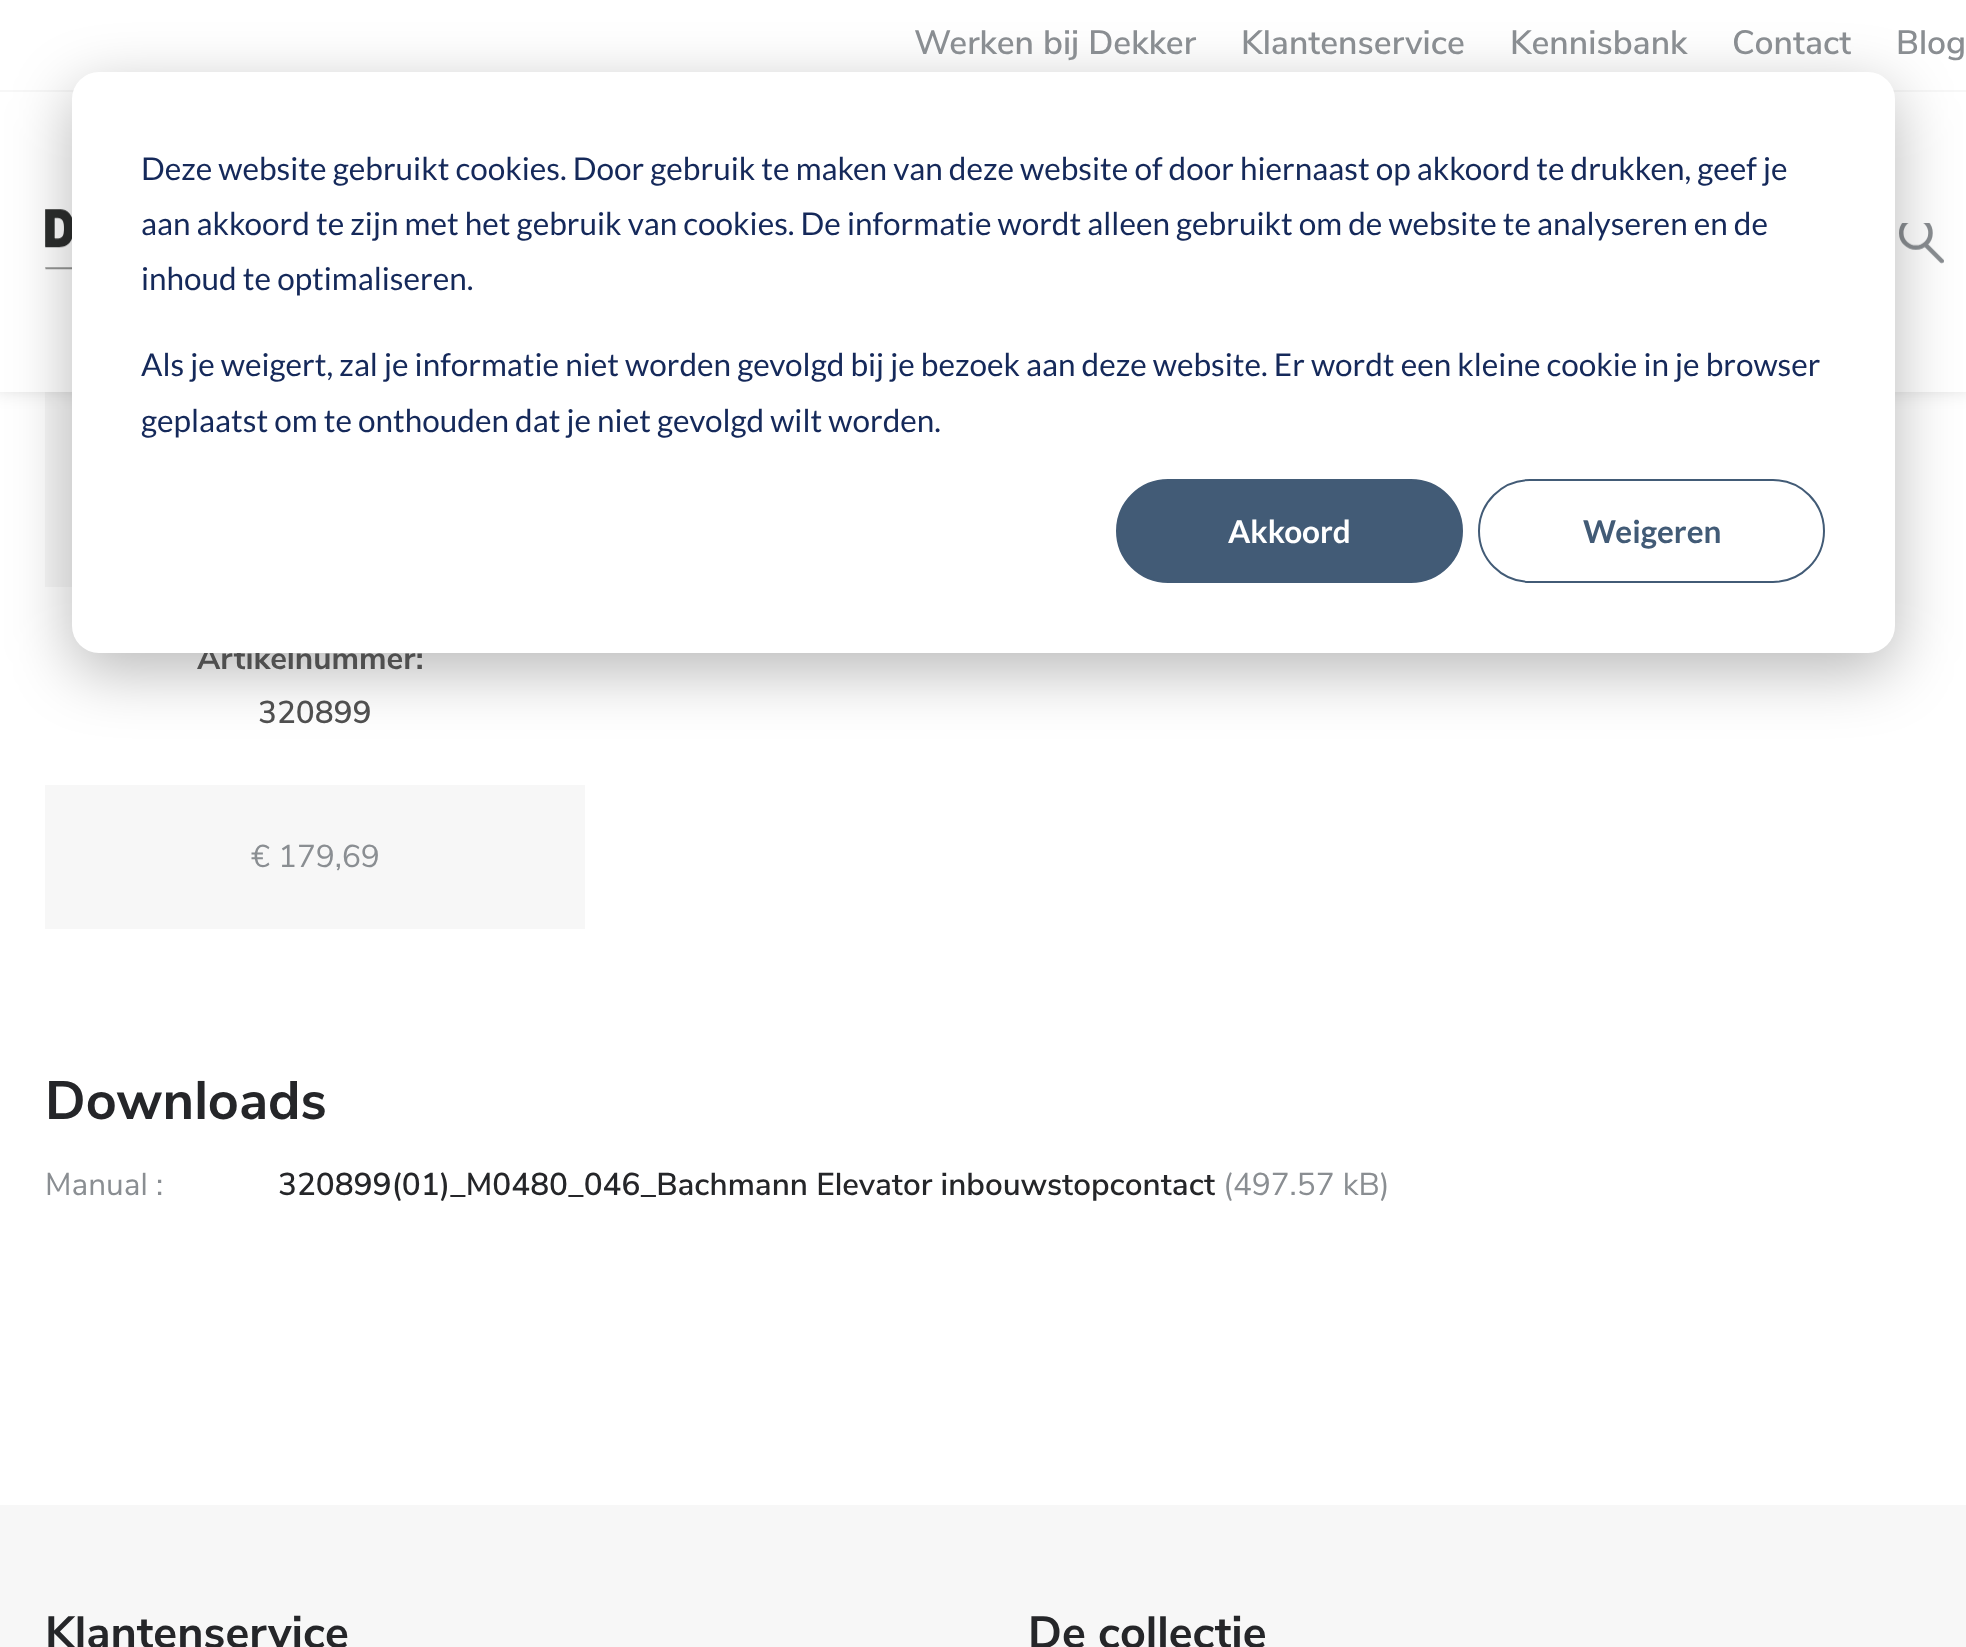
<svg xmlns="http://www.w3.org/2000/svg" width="1966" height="1647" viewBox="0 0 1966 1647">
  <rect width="100%" height="100%" fill="#fff"/>
  <path d="M45 392h27v195H45z" fill="#f7f7f7"/>
  <path d="M-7 -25h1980v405H-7z" fill="#00000059" filter="blur(13.5px)"/>
  <path d="M0 0h1966v392H0z" fill="#fff"/>
  <path d="M0 90h1966v2H0z" fill="#f7f7f7"/>
  <image x="45" y="209" width="27" height="61" href="img/1.png"/>
  <image x="1899" y="223" width="45" height="41" href="img/2.png"/>
  <path d="M45 785h540v144H45z" fill="#f7f7f7"/>
  <path d="M0 1505h1966v142H0z" fill="#f7f7f7"/>
  <rect x="72" y="90" width="1823" height="581" rx="27" fill="#00000047" filter="blur(31.5px)"/>
  <g font-family="Nunito Sans" font-size="33.75" font-weight="600" fill="#8a8e92">
    <text x="914" y="54">Werken bij Dekker</text>
    <text x="1241" y="54">Klantenservice</text>
    <text x="1510" y="54">Kennisbank</text>
    <text x="1732" y="54">Contact</text>
    <text x="1896" y="54">Blog</text>
  </g>
  <text x="197" y="669" font-family="Nunito Sans" font-size="31.5" font-weight="bold" fill="#4f4f4f">Artikelnummer:</text>
  <text x="258" y="723" font-family="Nunito Sans" font-size="31.5" font-weight="600" fill="#4f4f4f">320899</text>
  <text x="251" y="867" font-family="Nunito Sans" font-size="31.5" fill="#8a8e92">€ 179,69</text>
  <text x="45" y="1119" font-family="Nunito Sans" font-size="54" font-weight="bold" fill="#252629">Downloads</text>
  <text x="45" y="1195" font-family="Nunito Sans" font-size="31.5" fill="#8a8e92">Manual :</text>
  <text x="278" y="1195" font-family="Nunito Sans" font-size="31.5" font-weight="600" fill="#252629">320899(01)_M0480_046_Bachmann Elevator inbouwstopcontact</text>
  <text x="1223" y="1195" font-family="Nunito Sans" font-size="31.5" fill="#8a8e92">(497.57 kB)</text>
  <g font-family="Nunito Sans" font-size="45" font-weight="bold" fill="#252629">
    <text x="45" y="1648">Klantenservice</text>
    <text x="1028" y="1648">De collectie</text>
  </g>
  <rect x="72" y="72" width="1823" height="581" rx="27" fill="#fff"/>
  <g font-family="Lato" font-size="31.5" fill="#15295a">
    <text x="141" y="180">Deze website gebruikt cookies. Door gebruik te maken van deze website of door hiernaast op akkoord te drukken, geef je</text>
    <text x="141" y="235">aan akkoord te zijn met het gebruik van cookies. De informatie wordt alleen gebruikt om de website te analyseren en de</text>
    <text x="141" y="290">inhoud te optimaliseren.</text>
    <text x="141" y="376">Als je weigert, zal je informatie niet worden gevolgd bij je bezoek aan deze website. Er wordt een kleine cookie in je browser</text>
    <text x="141" y="432">geplaatst om te onthouden dat je niet gevolgd wilt worden.</text>
  </g>
  <rect x="1117" y="480" width="345" height="102" rx="51" fill="#425b76" stroke="#425b76" stroke-width="2"/>
  <text x="1228" y="543" font-family="Lato" font-size="31.5" font-weight="bold" fill="#fff">Akkoord</text>
  <rect x="1479" y="480" width="345" height="102" rx="51" fill="none" stroke="#425b76" stroke-width="2"/>
  <text x="1583" y="543" font-family="Lato" font-size="31.5" font-weight="bold" fill="#425b76">Weigeren</text>
</svg>
